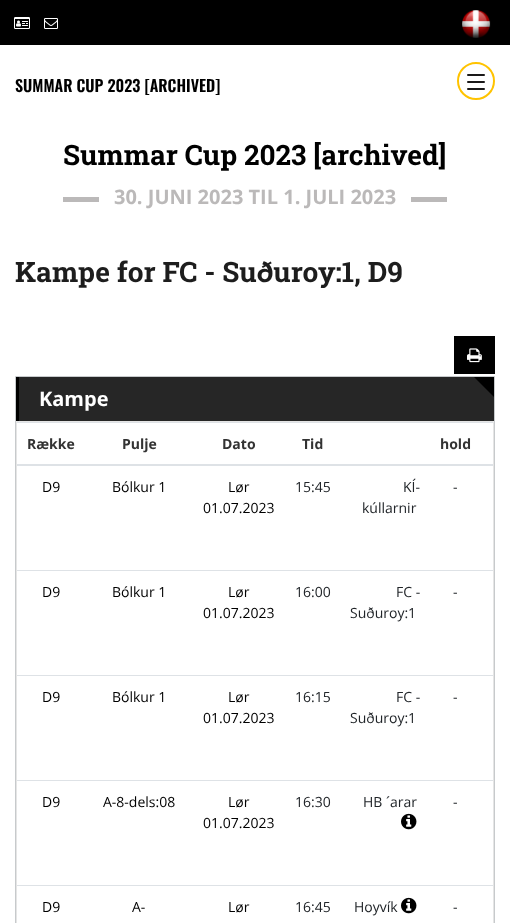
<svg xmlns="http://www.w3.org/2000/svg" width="510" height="923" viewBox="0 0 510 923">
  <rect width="100%" height="100%" fill="#fff"/>
  <path d="M0 0h510v45H0z" fill="#000"/>
  <image x="14" y="17" width="16" height="12" href="img/1.png"/>
  <image x="44" y="18" width="14" height="11" href="img/2.png"/>
  <image x="462" y="10" width="29" height="28" href="img/3.png"/>
  <circle cx="476" cy="81" r="18" fill="none" stroke="#ffc300" stroke-width="2"/>
  <rect x="467" y="74" width="18" height="2" rx="1" fill="#1a1919"/>
  <rect x="467" y="81" width="18" height="2" rx="1" fill="#1a1919"/>
  <rect x="467" y="88" width="18" height="2" rx="1" fill="#1a1919"/>
  <path d="M63 197h36v5H63z" fill="#bbb9b9"/>
  <path d="M411 197h36v5H411z" fill="#bbb9b9"/>
  <path d="M454 336h41v38H454z" fill="#000"/>
  <image x="467" y="348" width="15" height="15" href="img/4.png"/>
  <path d="M15.5 376.5h479v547H15.5z" fill="none" stroke="#c7cacc"/>
  <path d="M19 377h475v44H19z" fill="#262626"/>
  <path d="M16 377h3v44H16z" fill="#000"/>
  <path d="M474 377H494V397Z" fill="#000"/>
  <path d="M16.5 421.5h477v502H16.5z" fill="none" stroke="#e5e5e5"/>
  <path d="M17 422h476v1H17z" fill="#dee2e6"/>
  <path d="M17 464h476v2H17z" fill="#dee2e6"/>
  <path d="M17 570h476v1H17z" fill="#dee2e6"/>
  <path d="M17 675h476v1H17z" fill="#dee2e6"/>
  <path d="M17 780h476v1H17z" fill="#dee2e6"/>
  <image x="401" y="813" width="16" height="17" href="img/5.png"/>
  <path d="M17 885h476v1H17z" fill="#dee2e6"/>
  <image x="401" y="897" width="16" height="17" href="img/5.png"/>
  <text x="15" y="92" font-family="Oswald" font-size="16" font-weight="600" fill="#000">SUMMAR CUP 2023 [ARCHIVED]</text>
  <text x="63" y="165" font-family="Roboto Slab" font-size="28" font-weight="bold" fill="#000">Summar Cup 2023 [archived]</text>
  <text x="114" y="204" font-family="Open Sans" font-size="20" font-weight="bold" fill="#bbb9b9">30. JUNI 2023 TIL 1. JULI 2023</text>
  <text x="15" y="282" font-family="Roboto Slab" font-size="28" font-weight="bold" fill="#1d1d1d">Kampe for FC - Suðuroy:1, D9</text>
  <text x="39" y="406" font-family="Open Sans" font-size="20" font-weight="bold" fill="#fff">Kampe</text>
  <g font-family="Open Sans" font-size="14" font-weight="bold" fill="#333">
    <text x="27" y="449">Række</text>
    <text x="122" y="449">Pulje</text>
    <text x="222" y="449">Dato</text>
    <text x="302" y="449">Tid</text>
    <text x="440" y="449">hold</text>
  </g>
  <g font-family="Open Sans" font-size="14" fill="#000">
    <text x="42" y="492">D9</text>
    <text x="112" y="492">Bólkur 1</text>
    <text x="228" y="492">Lør</text>
    <text x="203" y="513">01.07.2023</text>
  </g>
  <g font-family="Open Sans" font-size="14" fill="#212529">
    <text x="295" y="492">15:45</text>
    <text x="403" y="492">KÍ-</text>
    <text x="362" y="513">kúllarnir</text>
    <text x="453" y="492">-</text>
  </g>
  <g font-family="Open Sans" font-size="14" fill="#000">
    <text x="42" y="597">D9</text>
    <text x="112" y="597">Bólkur 1</text>
    <text x="228" y="597">Lør</text>
    <text x="203" y="618">01.07.2023</text>
  </g>
  <g font-family="Open Sans" font-size="14" fill="#212529">
    <text x="295" y="597">16:00</text>
    <text x="396" y="597">FC -</text>
    <text x="350" y="618">Suðuroy:1</text>
    <text x="453" y="597">-</text>
  </g>
  <g font-family="Open Sans" font-size="14" fill="#000">
    <text x="42" y="702">D9</text>
    <text x="112" y="702">Bólkur 1</text>
    <text x="228" y="702">Lør</text>
    <text x="203" y="723">01.07.2023</text>
  </g>
  <g font-family="Open Sans" font-size="14" fill="#212529">
    <text x="295" y="702">16:15</text>
    <text x="396" y="702">FC -</text>
    <text x="350" y="723">Suðuroy:1</text>
    <text x="453" y="702">-</text>
  </g>
  <g font-family="Open Sans" font-size="14" fill="#000">
    <text x="42" y="807">D9</text>
    <text x="103" y="807">A-8-dels:08</text>
    <text x="228" y="807">Lør</text>
    <text x="203" y="828">01.07.2023</text>
  </g>
  <g font-family="Open Sans" font-size="14" fill="#212529">
    <text x="295" y="807">16:30</text>
    <text x="363" y="807">HB ´arar</text>
    <text x="453" y="807">-</text>
  </g>
  <g font-family="Open Sans" font-size="14" fill="#000">
    <text x="42" y="912">D9</text>
    <text x="132" y="912">A-</text>
    <text x="228" y="912">Lør</text>
  </g>
  <g font-family="Open Sans" font-size="14" fill="#212529">
    <text x="295" y="912">16:45</text>
    <text x="354" y="912">Hoyvík</text>
    <text x="453" y="912">-</text>
  </g>
</svg>
